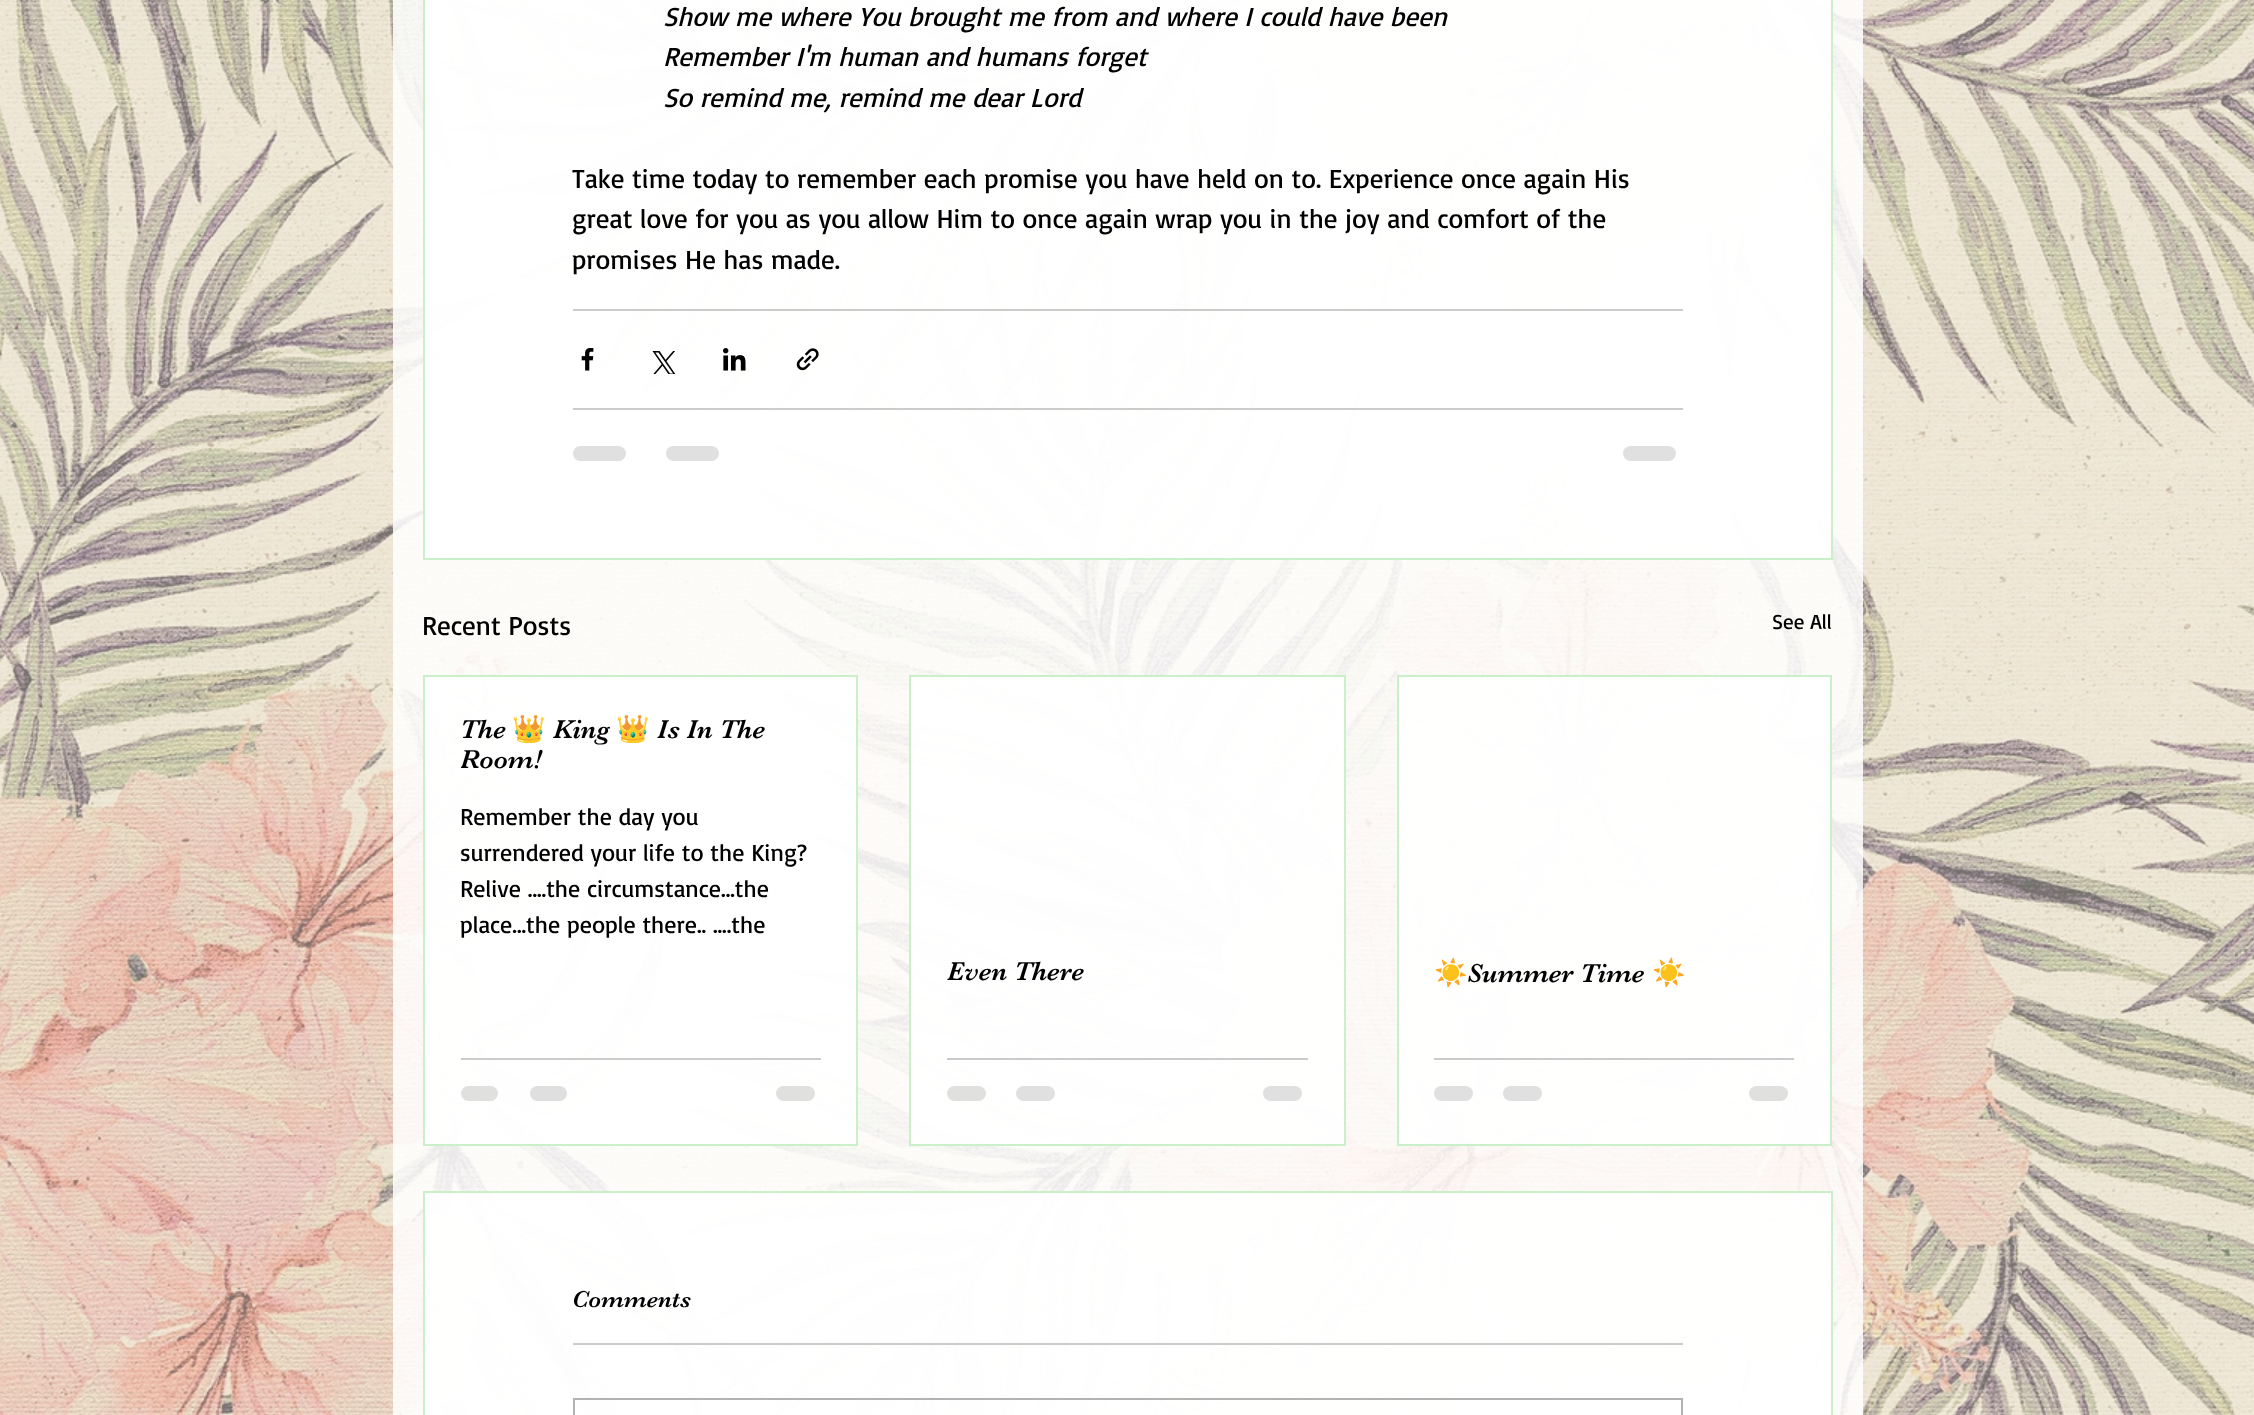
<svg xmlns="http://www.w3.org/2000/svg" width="2254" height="1415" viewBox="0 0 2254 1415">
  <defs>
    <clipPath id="clip1"><path d="M461 713h360v61H461z"/></clipPath>
    <clipPath id="clip2"><path d="M461 798h360v144H461z"/></clipPath>
    <clipPath id="clip3"><path d="M1434 956h360v31H1434z"/></clipPath>
  </defs>
  <rect width="100%" height="100%" fill="#e6e0d6"/>
  <image x="0" y="0" width="2254" height="1415" href="img/1.png"/>
  <path d="M393 0h1470v1415H393z" fill="#ffffffd9"/>
  <path d="M424 -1h1408v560H424z" fill="#ffffffe6" stroke="#caf0ca" stroke-width="2"/>
  <path d="M573 309h1110v2H573z" fill="#cccccb"/>
  <image x="581" y="348" width="13" height="23" href="img/2.png"/>
  <image x="652" y="351" width="23" height="23" href="img/3.png"/>
  <image x="723" y="348" width="23" height="23" href="img/4.png"/>
  <image x="796" y="348" width="23" height="23" href="img/5.png"/>
  <path d="M573 408h1110v2H573z" fill="#cccccb"/>
  <rect x="573" y="446" width="53" height="15" rx="7.5" fill="#e0e0e0"/>
  <rect x="666" y="446" width="53" height="15" rx="7.5" fill="#e0e0e0"/>
  <rect x="1623" y="446" width="53" height="15" rx="7.5" fill="#e0e0e0"/>
  <path d="M424 676h433v469H424z" fill="#ffffffe6" stroke="#caf0ca" stroke-width="2"/>
  <path d="M461 1058h360v2H461z" fill="#cccccb"/>
  <rect x="461" y="1086" width="37" height="15" rx="7.5" fill="#e0e0df"/>
  <rect x="530" y="1086" width="37" height="15" rx="7.5" fill="#e0dfdf"/>
  <rect x="776" y="1086" width="39" height="15" rx="7.5" fill="#e0e0df"/>
  <path d="M910 676h435v469H910z" fill="#ffffffe6" stroke="#caf0ca" stroke-width="2"/>
  <path d="M947 1058h361v2H947z" fill="#cccbcb"/>
  <rect x="947" y="1086" width="39" height="15" rx="7.5" fill="#e0e0df"/>
  <rect x="1016" y="1086" width="39" height="15" rx="7.5" fill="#e0e0e0"/>
  <rect x="1263" y="1086" width="39" height="15" rx="7.5" fill="#e0e0e0"/>
  <path d="M1398 676h433v469H1398z" fill="#ffffffe6" stroke="#caf0ca" stroke-width="2"/>
  <path d="M1434 1058h360v2H1434z" fill="#cccbcb"/>
  <rect x="1434" y="1086" width="39" height="15" rx="7.5" fill="#e0e0e0"/>
  <rect x="1503" y="1086" width="39" height="15" rx="7.5" fill="#e0e0e0"/>
  <rect x="1749" y="1086" width="39" height="15" rx="7.5" fill="#e0e0df"/>
  <path d="M424 1192h1408v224H424z" fill="#ffffffe6" stroke="#caf0ca" stroke-width="2"/>
  <path d="M573 1343h1110v2H573z" fill="#cccbcb"/>
  <path d="M574 1399h1108v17H574z" fill="none" stroke="#b2b2b2" stroke-width="2"/>
  <g font-family="Basic" font-size="27" font-style="italic" fill="#000">
    <text x="663" y="26">Show me where You brought me from and where I could have been</text>
    <text x="663" y="66">Remember I'm human and humans forget</text>
    <text x="663" y="107">So remind me, remind me dear Lord</text>
  </g>
  <g font-family="Basic" font-size="27" fill="#000">
    <text x="572" y="188">Take time today to remember each promise you have held on to. Experience once again His</text>
    <text x="572" y="228">great love for you as you allow Him to once again wrap you in the joy and comfort of the</text>
    <text x="572" y="269">promises He has made.</text>
    <text x="422" y="635">Recent Posts</text>
  </g>
  <text x="1772" y="629" font-family="Basic" font-size="21" fill="#000">See All</text>
  <text x="460" y="738" font-family="'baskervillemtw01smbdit'" font-size="27" fill="#000">The</text>
  <text x="512" y="738" font-family="Noto Color Emoji" font-size="27" fill="#000">👑</text>
  <text x="553" y="738" font-family="'baskervillemtw01smbdit'" font-size="27" fill="#000">King</text>
  <text x="616" y="738" font-family="Noto Color Emoji" font-size="27" fill="#000">👑</text>
  <text x="657" y="738" font-family="'baskervillemtw01smbdit'" font-size="27" fill="#000">Is In The</text>
  <g clip-path="url(#clip1)">
    <text x="460" y="768" font-family="'baskervillemtw01smbdit'" font-size="27" fill="#000">Room!</text>
  </g>
  <text x="460" y="825" font-family="Basic" font-size="24" fill="#000">Remember the day you</text>
  <g clip-path="url(#clip2)">
    <text x="460" y="861" font-family="Basic" font-size="24" fill="#000">surrendered your life to the King?</text>
  </g>
  <g font-family="Basic" font-size="24" fill="#000">
    <text x="460" y="897">Relive ....the circumstance...the</text>
    <text x="460" y="933">place...the people there.. ....the</text>
  </g>
  <text x="947" y="980" font-family="'baskervillemtw01smbdit'" font-size="27" fill="#000">Even There</text>
  <g clip-path="url(#clip3)">
    <text x="1434" y="982" font-family="Noto Color Emoji" font-size="27" fill="#000">☀️</text>
  </g>
  <text x="1467" y="982" font-family="'baskervillemtw01smbdit'" font-size="27" fill="#000">Summer Time</text>
  <g clip-path="url(#clip3)">
    <text x="1652" y="982" font-family="Noto Color Emoji" font-size="27" fill="#000">☀️</text>
  </g>
  <text x="572" y="1307" font-family="'baskervillemtw01smbdit'" font-size="24" fill="#000">Comments</text>
</svg>
